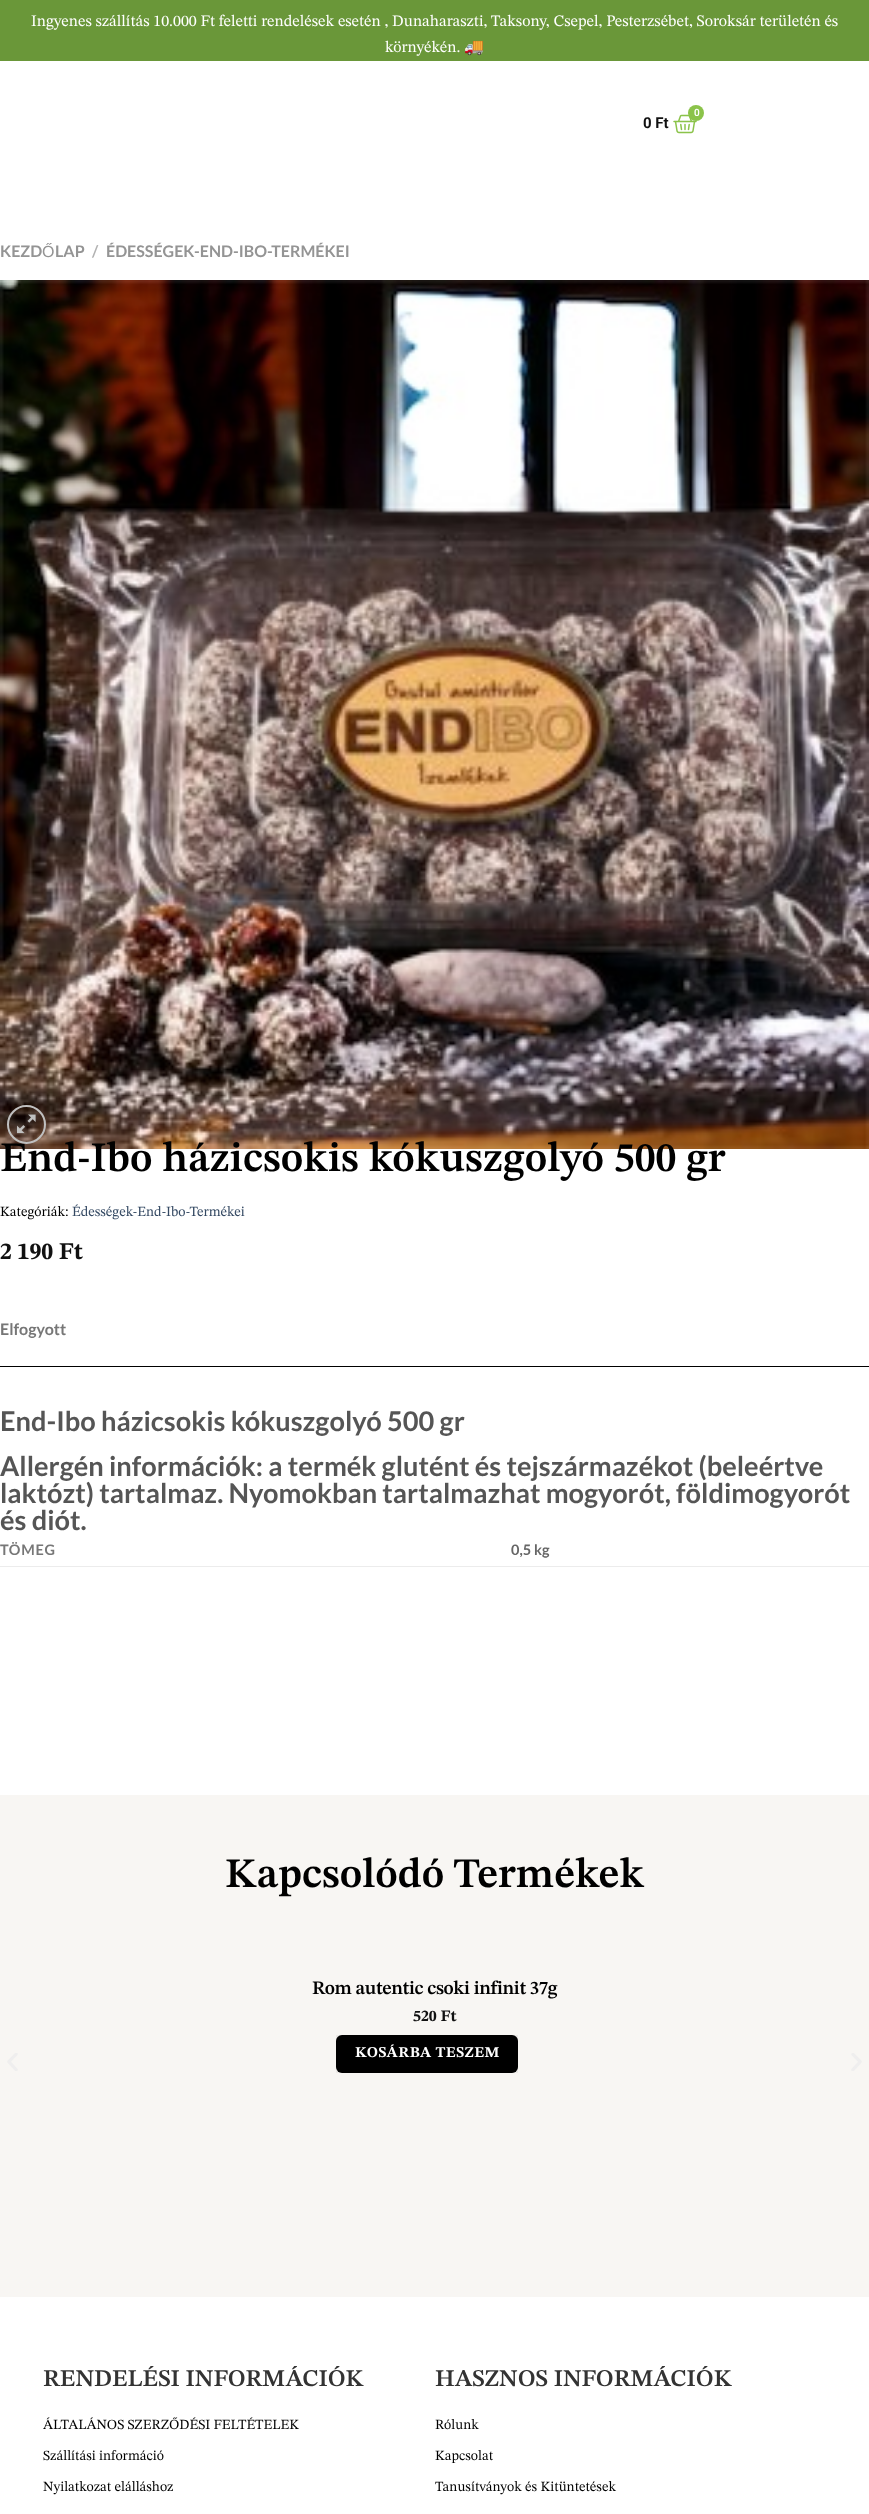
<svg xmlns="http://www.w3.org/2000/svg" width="869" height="2514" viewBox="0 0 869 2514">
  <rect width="100%" height="100%" fill="#fff"/>
  <path d="M0 0h869v61H0z" fill="#6a9739"/>
  <image x="673" y="114" width="24" height="20" href="img/1.png"/>
  <circle cx="696" cy="113" r="8" fill="#8bc34a"/>
  <image x="0" y="280" width="869" height="869" href="img/2.png"/>
  <path d="M0 1366h869v1H0z" fill="#000"/>
  <path d="M0 1566h869v1H0z" fill="#ececec"/>
  <path d="M0 1795h869v502H0z" fill="#f8f6f3"/>
  <rect x="336" y="2035" width="182" height="38" rx="6" fill="#000"/>
  <path d="M336.5 2035.5h181v37H336.5z" fill="none" stroke="#0000000d"/>
  <image x="7" y="2053" width="11" height="18" href="img/4.png"/>
  <image x="851" y="2053" width="11" height="18" href="img/5.png"/>
  <g font-family="STIX Two Text" font-size="16" fill="#fff">
    <text x="31" y="26">Ingyenes szállítás 10.000 Ft feletti rendelések esetén , Dunaharaszti, Taksony, Csepel, Pesterzsébet, Soroksár területén és</text>
    <text x="385" y="52">környékén.</text>
  </g>
  <text x="464" y="52" font-family="Noto Color Emoji" font-size="16" fill="#fff">🚚</text>
  <text x="694" y="116" font-family="Roboto" font-size="10" font-weight="600" fill="#fff">0</text>
  <text x="643" y="128" font-family="Roboto" font-size="15" font-weight="bold" fill="#111">0 Ft</text>
  <text x="0" y="257" font-family="Lato" font-size="16" font-weight="bold" fill="#949494">KEZD</text>
  <text x="42" y="257" font-family="Liberation Sans" font-size="16" fill="#949494">Ő</text>
  <text x="55" y="257" font-family="Lato" font-size="16" font-weight="bold" fill="#949494">LAP</text>
  <text x="92" y="257" font-family="Lato" font-size="16" font-weight="bold" fill="#b2b2b2">/</text>
  <text x="106" y="257" font-family="Lato" font-size="16" font-weight="bold" fill="#949494">ÉDESSÉGEK-END-IBO-TERMÉKEI</text>
  <text x="0" y="1171" font-family="STIX Two Text" font-size="42" font-weight="600" fill="#000">End-Ibo házicsokis kókuszgolyó 500 gr</text>
  <circle cx="26.5" cy="1124.5" r="18.5" fill="none" stroke="#c0c0c0" stroke-width="2"/>
  <image x="17" y="1114" width="19" height="20" href="img/3.png"/>
  <text x="0" y="1216" font-family="STIX Two Text" font-size="14" fill="#000">Kategóriák:</text>
  <text x="72" y="1216" font-family="STIX Two Text" font-size="14" fill="#334862">Édességek-End-Ibo-Termékei</text>
  <text x="0" y="1259" font-family="STIX Two Text" font-size="24" font-weight="bold" fill="#111">2 190 Ft</text>
  <text x="0" y="1335" font-family="Lato" font-size="16" font-weight="bold" fill="#777">Elfogyott</text>
  <g font-family="Lato" font-size="27.2" font-weight="bold" fill="#555">
    <text x="0" y="1431">End-Ibo házicsokis kókuszgolyó 500 gr</text>
    <text x="0" y="1476">Allergén információk: a termék glutént és tejszármazékot (beleértve</text>
    <text x="0" y="1503">laktózt) tartalmaz. Nyomokban tartalmazhat mogyorót, földimogyorót</text>
    <text x="0" y="1530">és diót.</text>
  </g>
  <text x="0" y="1555" font-family="Lato" font-size="14.5" font-weight="bold" letter-spacing="0.75" fill="#777">TÖMEG</text>
  <text x="511" y="1555" font-family="Lato" font-size="14.5" font-weight="bold" fill="#666">0,5 kg</text>
  <text x="225" y="1887" font-family="STIX Two Text" font-size="42" font-weight="600" fill="#000">Kapcsolódó Termékek</text>
  <text x="312" y="1994" font-family="STIX Two Text" font-size="19" font-weight="600" letter-spacing="-0.4" fill="#000">Rom autentic csoki infinit 37g</text>
  <text x="413" y="2021" font-family="STIX Two Text" font-size="16" font-weight="bold" fill="#111">520 Ft</text>
  <text x="355" y="2057" font-family="STIX Two Text" font-size="15" font-weight="bold" letter-spacing="0.5" fill="#fff">KOSÁRBA TESZEM</text>
  <text x="43" y="2386" font-family="STIX Two Text" font-size="24" font-weight="600" fill="#333">RENDELÉSI INFORMÁCIÓK</text>
  <g font-family="STIX Two Text" font-size="14" fill="#000">
    <text x="43" y="2429">ÁLTALÁNOS SZERZŐDÉSI FELTÉTELEK</text>
    <text x="43" y="2460">Szállítási információ</text>
    <text x="43" y="2491">Nyilatkozat elálláshoz</text>
  </g>
  <text x="435" y="2386" font-family="STIX Two Text" font-size="24" font-weight="600" fill="#333">HASZNOS INFORMÁCIÓK</text>
  <g font-family="STIX Two Text" font-size="14" fill="#000">
    <text x="435" y="2429">Rólunk</text>
    <text x="435" y="2460">Kapcsolat</text>
    <text x="435" y="2491">Tanusítványok és Kitüntetések</text>
  </g>
</svg>
